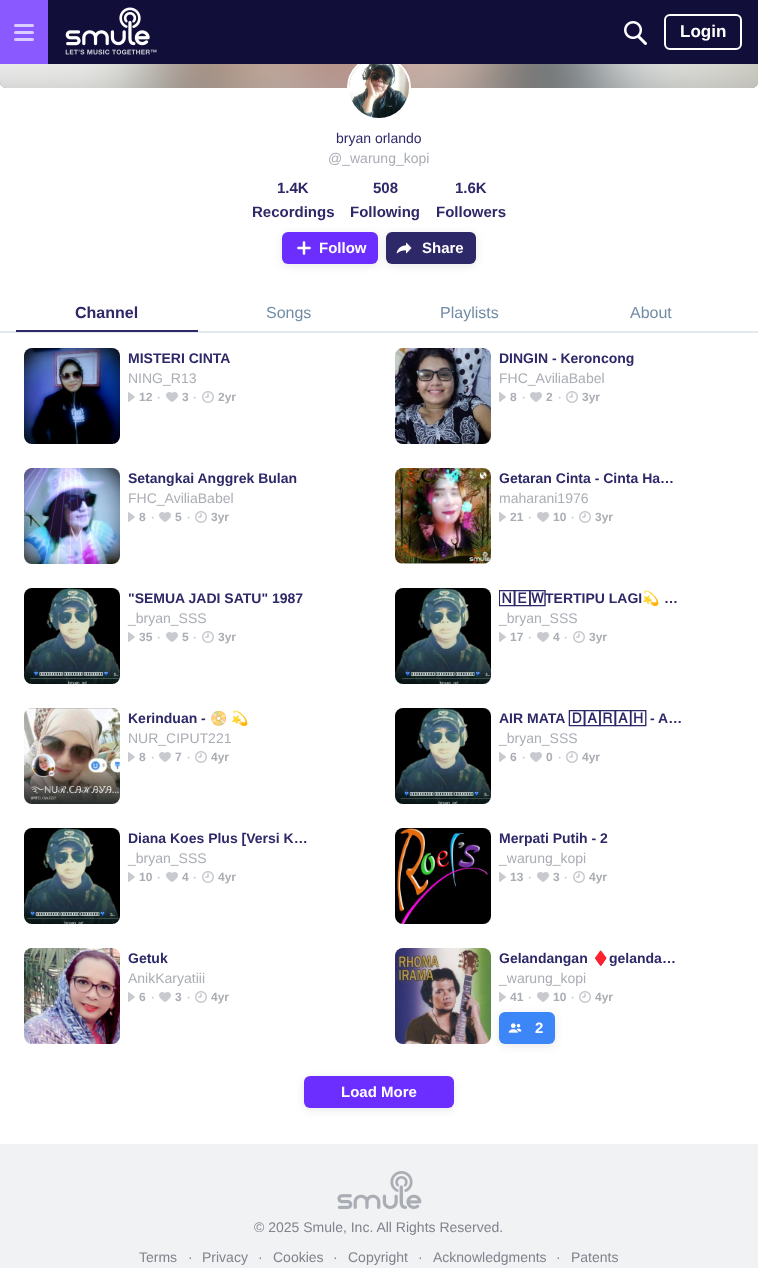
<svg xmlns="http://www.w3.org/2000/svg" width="758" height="1268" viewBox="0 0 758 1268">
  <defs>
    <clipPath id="clip1"><path d="M499 588h183v20H499z"/></clipPath>
  </defs>
  <rect width="100%" height="100%" fill="#fff"/>
  <path d="M0 12H758V82C758 85.5 755.5 88 752 88H6C2.5 88 0 85.5 0 82Z" fill="#999"/>
  <image x="0" y="64" width="758" height="24" href="img/3.png"/>
  <circle cx="379" cy="88" r="31" fill="none" stroke="#fff" stroke-width="2"/>
  <path d="M48 0h710v64H48z" fill="#110e39"/>
  <path d="M0 0h48v64H0z" fill="#8a59ff"/>
  <rect x="14" y="31" width="20" height="3" rx="1.5" fill="#dccdff"/>
  <rect x="14" y="24" width="20" height="3" rx="1.5" fill="#dccdff"/>
  <rect x="14" y="38" width="20" height="3" rx="1.5" fill="#dccdff"/>
  <image x="65" y="7" width="92" height="48" href="img/1.png"/>
  <image x="624" y="21" width="23" height="24" href="img/2.png"/>
  <rect x="665" y="15" width="76" height="34" rx="5" fill="none" stroke="#fff" stroke-width="2"/>
  <image x="349" y="64" width="60" height="54" href="img/4.png"/>
  <rect x="282" y="234" width="96" height="32" rx="6" fill="#1f20211a" filter="blur(4px)"/>
  <rect x="282" y="232" width="96" height="32" rx="6" fill="#6c2eff"/>
  <image x="297" y="241" width="14" height="14" href="img/5.png"/>
  <rect x="386" y="234" width="90" height="32" rx="6" fill="#1f20211a" filter="blur(4px)"/>
  <rect x="386" y="232" width="90" height="32" rx="6" fill="#2d2867"/>
  <image x="396" y="242" width="16" height="12" href="img/6.png"/>
  <path d="M0 331h758v2H0z" fill="#e4e9ee"/>
  <path d="M16 330h182v2H16z" fill="#2d2867"/>
  <rect x="24" y="348" width="96" height="96" rx="8" fill="#f0f2f4"/>
  <image x="24" y="348" width="96" height="96" href="img/7.png"/>
  <image x="128" y="392" width="7" height="10" href="img/8.png"/>
  <image x="166" y="392" width="12" height="10" href="img/9.png"/>
  <image x="202" y="391" width="12" height="12" href="img/10.png"/>
  <rect x="395" y="348" width="96" height="96" rx="8" fill="#f0f2f4"/>
  <image x="395" y="348" width="96" height="96" href="img/11.png"/>
  <image x="499" y="392" width="7" height="10" href="img/8.png"/>
  <image x="530" y="392" width="12" height="10" href="img/9.png"/>
  <image x="566" y="391" width="12" height="12" href="img/10.png"/>
  <rect x="24" y="468" width="96" height="96" rx="8" fill="#f0f2f4"/>
  <image x="24" y="468" width="96" height="96" href="img/12.png"/>
  <image x="128" y="512" width="7" height="10" href="img/8.png"/>
  <image x="159" y="512" width="12" height="10" href="img/9.png"/>
  <image x="195" y="511" width="12" height="12" href="img/10.png"/>
  <rect x="395" y="468" width="96" height="96" rx="8" fill="#f0f2f4"/>
  <image x="395" y="468" width="96" height="96" href="img/13.png"/>
  <image x="499" y="512" width="7" height="10" href="img/8.png"/>
  <image x="537" y="512" width="12" height="10" href="img/9.png"/>
  <image x="579" y="511" width="12" height="12" href="img/10.png"/>
  <rect x="24" y="588" width="96" height="96" rx="8" fill="#f0f2f4"/>
  <image x="24" y="588" width="96" height="96" href="img/14.png"/>
  <image x="128" y="632" width="7" height="10" href="img/8.png"/>
  <image x="166" y="632" width="12" height="10" href="img/9.png"/>
  <image x="202" y="631" width="12" height="12" href="img/10.png"/>
  <rect x="395" y="588" width="96" height="96" rx="8" fill="#f0f2f4"/>
  <image x="395" y="588" width="96" height="96" href="img/15.png"/>
  <image x="499" y="632" width="7" height="10" href="img/8.png"/>
  <image x="537" y="632" width="12" height="10" href="img/9.png"/>
  <image x="573" y="631" width="12" height="12" href="img/10.png"/>
  <rect x="24" y="708" width="96" height="96" rx="8" fill="#f0f2f4"/>
  <image x="24" y="708" width="96" height="96" href="img/16.png"/>
  <image x="128" y="752" width="7" height="10" href="img/8.png"/>
  <image x="159" y="752" width="12" height="10" href="img/9.png"/>
  <image x="195" y="751" width="12" height="12" href="img/10.png"/>
  <rect x="395" y="708" width="96" height="96" rx="8" fill="#f0f2f4"/>
  <image x="395" y="708" width="96" height="96" href="img/17.png"/>
  <image x="499" y="752" width="7" height="10" href="img/8.png"/>
  <image x="530" y="752" width="12" height="10" href="img/9.png"/>
  <image x="566" y="751" width="12" height="12" href="img/10.png"/>
  <rect x="24" y="828" width="96" height="96" rx="8" fill="#f0f2f4"/>
  <image x="24" y="828" width="96" height="96" href="img/18.png"/>
  <image x="128" y="872" width="7" height="10" href="img/8.png"/>
  <image x="166" y="872" width="12" height="10" href="img/9.png"/>
  <image x="202" y="871" width="12" height="12" href="img/10.png"/>
  <rect x="395" y="828" width="96" height="96" rx="8" fill="#f0f2f4"/>
  <image x="395" y="828" width="96" height="96" href="img/19.png"/>
  <image x="499" y="872" width="7" height="10" href="img/8.png"/>
  <image x="537" y="872" width="12" height="10" href="img/9.png"/>
  <image x="573" y="871" width="12" height="12" href="img/10.png"/>
  <rect x="24" y="948" width="96" height="96" rx="8" fill="#f0f2f4"/>
  <image x="24" y="948" width="96" height="96" href="img/20.png"/>
  <image x="128" y="992" width="7" height="10" href="img/8.png"/>
  <image x="159" y="992" width="12" height="10" href="img/9.png"/>
  <image x="195" y="991" width="12" height="12" href="img/10.png"/>
  <rect x="395" y="948" width="96" height="96" rx="8" fill="#f0f2f4"/>
  <image x="395" y="948" width="96" height="96" href="img/21.png"/>
  <image x="499" y="992" width="7" height="10" href="img/8.png"/>
  <image x="537" y="992" width="12" height="10" href="img/9.png"/>
  <image x="579" y="991" width="12" height="12" href="img/10.png"/>
  <rect x="499" y="1014" width="56" height="32" rx="6" fill="#1f20211a" filter="blur(4px)"/>
  <rect x="499" y="1012" width="56" height="32" rx="6" fill="#3c86f7"/>
  <image x="508" y="1023" width="14" height="10" href="img/22.png"/>
  <rect x="304" y="1078" width="150" height="32" rx="6" fill="#1f20211a" filter="blur(4px)"/>
  <rect x="304" y="1076" width="150" height="32" rx="6" fill="#6c2eff"/>
  <path d="M0 1144h758v124H0z" fill="#f0f2f4"/>
  <image x="337" y="1171" width="85" height="38" href="img/23.png"/>
  <text x="680" y="37" font-family="Liberation Sans" font-size="17" font-weight="bold" fill="#fff">Login</text>
  <text x="336" y="143" font-family="Liberation Sans" font-size="14" fill="#2d2867">bryan orlando</text>
  <text x="328" y="163" font-family="Liberation Sans" font-size="14" fill="#aaadb4">@_warung_kopi</text>
  <g font-family="Liberation Sans" font-size="15" font-weight="bold" fill="#2d2867">
    <text x="277" y="193">1.4K</text>
    <text x="252" y="217">Recordings</text>
    <text x="373" y="193">508</text>
    <text x="350" y="217">Following</text>
    <text x="455" y="193">1.6K</text>
    <text x="436" y="217">Followers</text>
  </g>
  <g font-family="Liberation Sans" font-size="15" font-weight="bold" fill="#fff">
    <text x="319" y="253">Follow</text>
    <text x="422" y="253">Share</text>
  </g>
  <text x="75" y="318" font-family="Liberation Sans" font-size="16" font-weight="bold" fill="#2d2867">Channel</text>
  <g font-family="Liberation Sans" font-size="16" fill="#728ca6">
    <text x="266" y="318">Songs</text>
    <text x="440" y="318">Playlists</text>
    <text x="630" y="318">About</text>
  </g>
  <text x="128" y="363" font-family="Liberation Sans" font-size="14" font-weight="bold" fill="#2d2867">MISTERI CINTA</text>
  <text x="128" y="383" font-family="Liberation Sans" font-size="14" fill="#aaadb4">NING_R13</text>
  <text x="139" y="401" font-family="Liberation Sans" font-size="12" font-weight="bold" fill="#aaadb4">12</text>
  <text x="156" y="402" font-family="Liberation Sans" font-size="16" fill="#c8cacf">·</text>
  <text x="182" y="401" font-family="Liberation Sans" font-size="12" font-weight="bold" fill="#aaadb4">3</text>
  <text x="192" y="402" font-family="Liberation Sans" font-size="16" fill="#c8cacf">·</text>
  <text x="218" y="401" font-family="Liberation Sans" font-size="12" font-weight="bold" fill="#aaadb4">2yr</text>
  <text x="499" y="363" font-family="Liberation Sans" font-size="14" font-weight="bold" fill="#2d2867">DINGIN - Keroncong</text>
  <text x="499" y="383" font-family="Liberation Sans" font-size="14" fill="#aaadb4">FHC_AviliaBabel</text>
  <text x="510" y="401" font-family="Liberation Sans" font-size="12" font-weight="bold" fill="#aaadb4">8</text>
  <text x="521" y="402" font-family="Liberation Sans" font-size="16" fill="#c8cacf">·</text>
  <text x="546" y="401" font-family="Liberation Sans" font-size="12" font-weight="bold" fill="#aaadb4">2</text>
  <text x="557" y="402" font-family="Liberation Sans" font-size="16" fill="#c8cacf">·</text>
  <text x="582" y="401" font-family="Liberation Sans" font-size="12" font-weight="bold" fill="#aaadb4">3yr</text>
  <text x="128" y="483" font-family="Liberation Sans" font-size="14" font-weight="bold" fill="#2d2867">Setangkai Anggrek Bulan</text>
  <text x="128" y="503" font-family="Liberation Sans" font-size="14" fill="#aaadb4">FHC_AviliaBabel</text>
  <text x="139" y="521" font-family="Liberation Sans" font-size="12" font-weight="bold" fill="#aaadb4">8</text>
  <text x="150" y="522" font-family="Liberation Sans" font-size="16" fill="#c8cacf">·</text>
  <text x="175" y="521" font-family="Liberation Sans" font-size="12" font-weight="bold" fill="#aaadb4">5</text>
  <text x="186" y="522" font-family="Liberation Sans" font-size="16" fill="#c8cacf">·</text>
  <text x="211" y="521" font-family="Liberation Sans" font-size="12" font-weight="bold" fill="#aaadb4">3yr</text>
  <text x="499" y="483" font-family="Liberation Sans" font-size="14" font-weight="bold" fill="#2d2867">Getaran Cinta - Cinta Ha…</text>
  <text x="499" y="503" font-family="Liberation Sans" font-size="14" fill="#aaadb4">maharani1976</text>
  <text x="510" y="521" font-family="Liberation Sans" font-size="12" font-weight="bold" fill="#aaadb4">21</text>
  <text x="527" y="522" font-family="Liberation Sans" font-size="16" fill="#c8cacf">·</text>
  <text x="553" y="521" font-family="Liberation Sans" font-size="12" font-weight="bold" fill="#aaadb4">10</text>
  <text x="570" y="522" font-family="Liberation Sans" font-size="16" fill="#c8cacf">·</text>
  <text x="595" y="521" font-family="Liberation Sans" font-size="12" font-weight="bold" fill="#aaadb4">3yr</text>
  <text x="128" y="603" font-family="Liberation Sans" font-size="14" font-weight="bold" fill="#2d2867">"SEMUA JADI SATU" 1987</text>
  <text x="128" y="623" font-family="Liberation Sans" font-size="14" fill="#aaadb4">_bryan_SSS</text>
  <text x="139" y="641" font-family="Liberation Sans" font-size="12" font-weight="bold" fill="#aaadb4">35</text>
  <text x="156" y="642" font-family="Liberation Sans" font-size="16" fill="#c8cacf">·</text>
  <text x="182" y="641" font-family="Liberation Sans" font-size="12" font-weight="bold" fill="#aaadb4">5</text>
  <text x="192" y="642" font-family="Liberation Sans" font-size="16" fill="#c8cacf">·</text>
  <text x="218" y="641" font-family="Liberation Sans" font-size="12" font-weight="bold" fill="#aaadb4">3yr</text>
  <g clip-path="url(#clip1)">
    <text x="499" y="603" font-family="FreeSans" font-size="14" font-weight="bold" fill="#2d2867">🄽🄴🅆</text>
  </g>
  <text x="545" y="603" font-family="Liberation Sans" font-size="14" font-weight="bold" fill="#2d2867">TERTIPU LAGI</text>
  <text x="642" y="603" font-family="Noto Color Emoji" font-size="14" font-weight="bold" fill="#2d2867">💫</text>
  <text x="664" y="603" font-family="Liberation Sans" font-size="14" font-weight="bold" fill="#2d2867">…</text>
  <text x="499" y="623" font-family="Liberation Sans" font-size="14" fill="#aaadb4">_bryan_SSS</text>
  <text x="510" y="641" font-family="Liberation Sans" font-size="12" font-weight="bold" fill="#aaadb4">17</text>
  <text x="527" y="642" font-family="Liberation Sans" font-size="16" fill="#c8cacf">·</text>
  <text x="553" y="641" font-family="Liberation Sans" font-size="12" font-weight="bold" fill="#aaadb4">4</text>
  <text x="563" y="642" font-family="Liberation Sans" font-size="16" fill="#c8cacf">·</text>
  <text x="589" y="641" font-family="Liberation Sans" font-size="12" font-weight="bold" fill="#aaadb4">3yr</text>
  <text x="128" y="723" font-family="Liberation Sans" font-size="14" font-weight="bold" fill="#2d2867">Kerinduan -</text>
  <g font-family="Noto Color Emoji" font-size="14" font-weight="bold" fill="#2d2867">
    <text x="210" y="723">📀</text>
    <text x="231" y="723">💫</text>
  </g>
  <text x="128" y="743" font-family="Liberation Sans" font-size="14" fill="#aaadb4">NUR_CIPUT221</text>
  <text x="139" y="761" font-family="Liberation Sans" font-size="12" font-weight="bold" fill="#aaadb4">8</text>
  <text x="150" y="762" font-family="Liberation Sans" font-size="16" fill="#c8cacf">·</text>
  <text x="175" y="761" font-family="Liberation Sans" font-size="12" font-weight="bold" fill="#aaadb4">7</text>
  <text x="186" y="762" font-family="Liberation Sans" font-size="16" fill="#c8cacf">·</text>
  <text x="211" y="761" font-family="Liberation Sans" font-size="12" font-weight="bold" fill="#aaadb4">4yr</text>
  <text x="499" y="723" font-family="Liberation Sans" font-size="14" font-weight="bold" fill="#2d2867">AIR MATA</text>
  <text x="569" y="723" font-family="FreeSans" font-size="14" font-weight="bold" fill="#2d2867">🄳🄰🅁🄰🄷</text>
  <text x="650" y="723" font-family="Liberation Sans" font-size="14" font-weight="bold" fill="#2d2867">- A…</text>
  <text x="499" y="743" font-family="Liberation Sans" font-size="14" fill="#aaadb4">_bryan_SSS</text>
  <text x="510" y="761" font-family="Liberation Sans" font-size="12" font-weight="bold" fill="#aaadb4">6</text>
  <text x="521" y="762" font-family="Liberation Sans" font-size="16" fill="#c8cacf">·</text>
  <text x="546" y="761" font-family="Liberation Sans" font-size="12" font-weight="bold" fill="#aaadb4">0</text>
  <text x="557" y="762" font-family="Liberation Sans" font-size="16" fill="#c8cacf">·</text>
  <text x="582" y="761" font-family="Liberation Sans" font-size="12" font-weight="bold" fill="#aaadb4">4yr</text>
  <text x="128" y="843" font-family="Liberation Sans" font-size="14" font-weight="bold" fill="#2d2867">Diana Koes Plus [Versi K…</text>
  <text x="128" y="863" font-family="Liberation Sans" font-size="14" fill="#aaadb4">_bryan_SSS</text>
  <text x="139" y="881" font-family="Liberation Sans" font-size="12" font-weight="bold" fill="#aaadb4">10</text>
  <text x="156" y="882" font-family="Liberation Sans" font-size="16" fill="#c8cacf">·</text>
  <text x="182" y="881" font-family="Liberation Sans" font-size="12" font-weight="bold" fill="#aaadb4">4</text>
  <text x="192" y="882" font-family="Liberation Sans" font-size="16" fill="#c8cacf">·</text>
  <text x="218" y="881" font-family="Liberation Sans" font-size="12" font-weight="bold" fill="#aaadb4">4yr</text>
  <text x="499" y="843" font-family="Liberation Sans" font-size="14" font-weight="bold" fill="#2d2867">Merpati Putih - 2</text>
  <text x="499" y="863" font-family="Liberation Sans" font-size="14" fill="#aaadb4">_warung_kopi</text>
  <text x="510" y="881" font-family="Liberation Sans" font-size="12" font-weight="bold" fill="#aaadb4">13</text>
  <text x="527" y="882" font-family="Liberation Sans" font-size="16" fill="#c8cacf">·</text>
  <text x="553" y="881" font-family="Liberation Sans" font-size="12" font-weight="bold" fill="#aaadb4">3</text>
  <text x="563" y="882" font-family="Liberation Sans" font-size="16" fill="#c8cacf">·</text>
  <text x="589" y="881" font-family="Liberation Sans" font-size="12" font-weight="bold" fill="#aaadb4">4yr</text>
  <text x="128" y="963" font-family="Liberation Sans" font-size="14" font-weight="bold" fill="#2d2867">Getuk</text>
  <text x="128" y="983" font-family="Liberation Sans" font-size="14" fill="#aaadb4">AnikKaryatiii</text>
  <text x="139" y="1001" font-family="Liberation Sans" font-size="12" font-weight="bold" fill="#aaadb4">6</text>
  <text x="150" y="1002" font-family="Liberation Sans" font-size="16" fill="#c8cacf">·</text>
  <text x="175" y="1001" font-family="Liberation Sans" font-size="12" font-weight="bold" fill="#aaadb4">3</text>
  <text x="186" y="1002" font-family="Liberation Sans" font-size="16" fill="#c8cacf">·</text>
  <text x="211" y="1001" font-family="Liberation Sans" font-size="12" font-weight="bold" fill="#aaadb4">4yr</text>
  <text x="499" y="963" font-family="Liberation Sans" font-size="14" font-weight="bold" fill="#2d2867">Gelandangan</text>
  <text x="592" y="963" font-family="Noto Color Emoji" font-size="14" font-weight="bold" fill="#2d2867">♦️</text>
  <text x="609" y="963" font-family="Liberation Sans" font-size="14" font-weight="bold" fill="#2d2867">gelanda…</text>
  <text x="499" y="983" font-family="Liberation Sans" font-size="14" fill="#aaadb4">_warung_kopi</text>
  <text x="510" y="1001" font-family="Liberation Sans" font-size="12" font-weight="bold" fill="#aaadb4">41</text>
  <text x="527" y="1002" font-family="Liberation Sans" font-size="16" fill="#c8cacf">·</text>
  <text x="553" y="1001" font-family="Liberation Sans" font-size="12" font-weight="bold" fill="#aaadb4">10</text>
  <text x="570" y="1002" font-family="Liberation Sans" font-size="16" fill="#c8cacf">·</text>
  <text x="595" y="1001" font-family="Liberation Sans" font-size="12" font-weight="bold" fill="#aaadb4">4yr</text>
  <g font-family="Liberation Sans" font-size="15" font-weight="bold" fill="#fff">
    <text x="535" y="1033">2</text>
    <text x="341" y="1097">Load More</text>
  </g>
  <g font-family="Liberation Sans" font-size="14" fill="#81838c">
    <text x="254" y="1232">© 2025 Smule, Inc. All Rights Reserved.</text>
    <text x="139" y="1262">Terms</text>
    <text x="188" y="1262">·</text>
    <text x="202" y="1262">Privacy</text>
    <text x="258" y="1262">·</text>
    <text x="273" y="1262">Cookies</text>
    <text x="333" y="1262">·</text>
    <text x="348" y="1262">Copyright</text>
    <text x="418" y="1262">·</text>
    <text x="433" y="1262">Acknowledgments</text>
    <text x="556" y="1262">·</text>
    <text x="571" y="1262">Patents</text>
  </g>
</svg>
